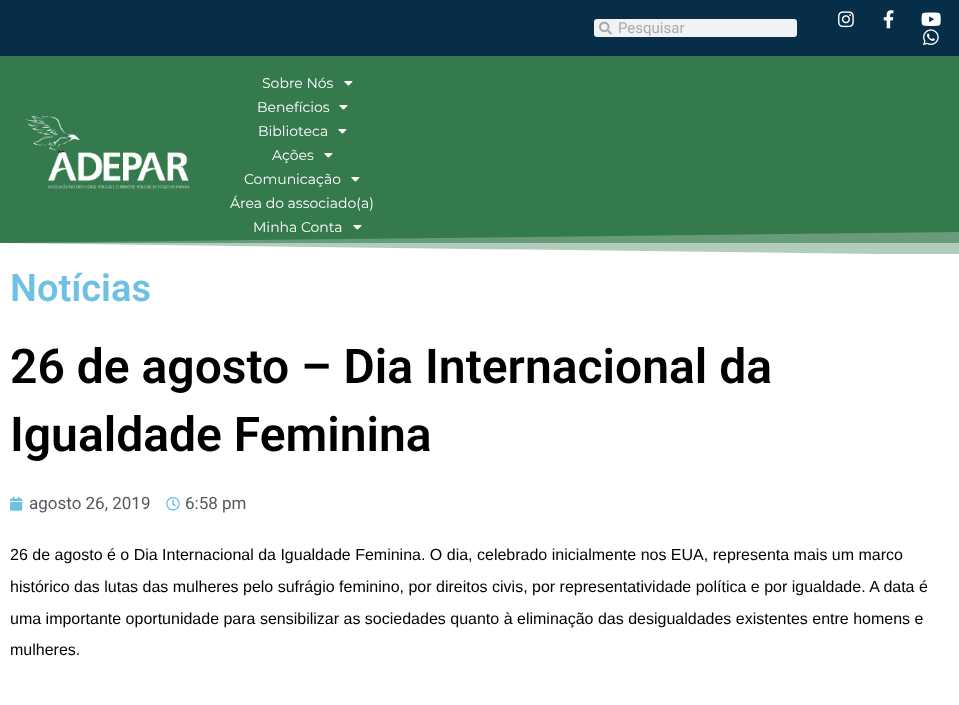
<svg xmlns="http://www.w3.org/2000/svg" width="959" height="705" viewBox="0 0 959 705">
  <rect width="100%" height="100%" fill="#fff"/>
  <path d="M0 0h959v56H0z" fill="#072e48"/>
  <rect x="594" y="19" width="203" height="18" rx="3" fill="#f1f2f3"/>
  <image x="599" y="21" width="13" height="14" href="img/1.png"/>
  <image x="838" y="11" width="16" height="17" href="img/2.png"/>
  <image x="883" y="10" width="11" height="19" href="img/3.png"/>
  <image x="921" y="12" width="20" height="14" href="img/4.png"/>
  <image x="923" y="29" width="16" height="17" href="img/5.png"/>
  <path d="M0 56h959v187H0z" fill="#357a4d"/>
  <path d="M4 243h955v11H4z" fill="#9abda6"/>
  <image x="25" y="116" width="165" height="74" href="img/6.png"/>
  <image x="344" y="81" width="9" height="5" href="img/7.png"/>
  <image x="339" y="105" width="9" height="5" href="img/7.png"/>
  <image x="338" y="129" width="9" height="5" href="img/7.png"/>
  <image x="324" y="153" width="9" height="5" href="img/7.png"/>
  <image x="351" y="177" width="9" height="5" href="img/7.png"/>
  <image x="353" y="225" width="9" height="5" href="img/7.png"/>
  <path d="M959 255H-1V243Z" fill="#fff"/>
  <path d="M-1 255H959V232L-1 243Z" fill="#ffffff40"/>
  <image x="10" y="496" width="13" height="15" href="img/8.png"/>
  <image x="166" y="497" width="14" height="14" href="img/9.png"/>
  <text x="618" y="33" font-family="Roboto" font-size="15" fill="#aaa">Pesquisar</text>
  <g font-family="Montserrat" font-size="14" fill="#fff">
    <text x="262" y="88">Sobre Nós</text>
    <text x="257" y="112">Benefícios</text>
    <text x="258" y="136">Biblioteca</text>
    <text x="272" y="160">Ações</text>
    <text x="244" y="184">Comunicação</text>
    <text x="230" y="208">Área do associado(a)</text>
    <text x="253" y="232">Minha Conta</text>
  </g>
  <text x="10" y="301" font-family="Roboto" font-size="38" font-weight="600" fill="#6ec1e4">Notícias</text>
  <g font-family="Roboto" font-size="48" font-weight="600" fill="#000">
    <text x="10" y="383">26 de agosto – Dia Internacional da</text>
    <text x="10" y="451">Igualdade Feminina</text>
  </g>
  <g font-family="Roboto" font-size="17" fill="#54595f">
    <text x="29" y="509">agosto 26, 2019</text>
    <text x="185" y="509">6:58 pm</text>
  </g>
  <g font-family="Liberation Sans" font-size="16" fill="#000">
    <text x="10" y="560">26 de agosto é o Dia Internacional da Igualdade Feminina. O dia, celebrado inicialmente nos EUA, representa mais um marco</text>
    <text x="10" y="592">histórico das lutas das mulheres pelo sufrágio feminino, por direitos civis, por representatividade política e por igualdade. A data é</text>
    <text x="10" y="624">uma importante oportunidade para sensibilizar as sociedades quanto à eliminação das desigualdades existentes entre homens e</text>
    <text x="10" y="655">mulheres.</text>
  </g>
</svg>
